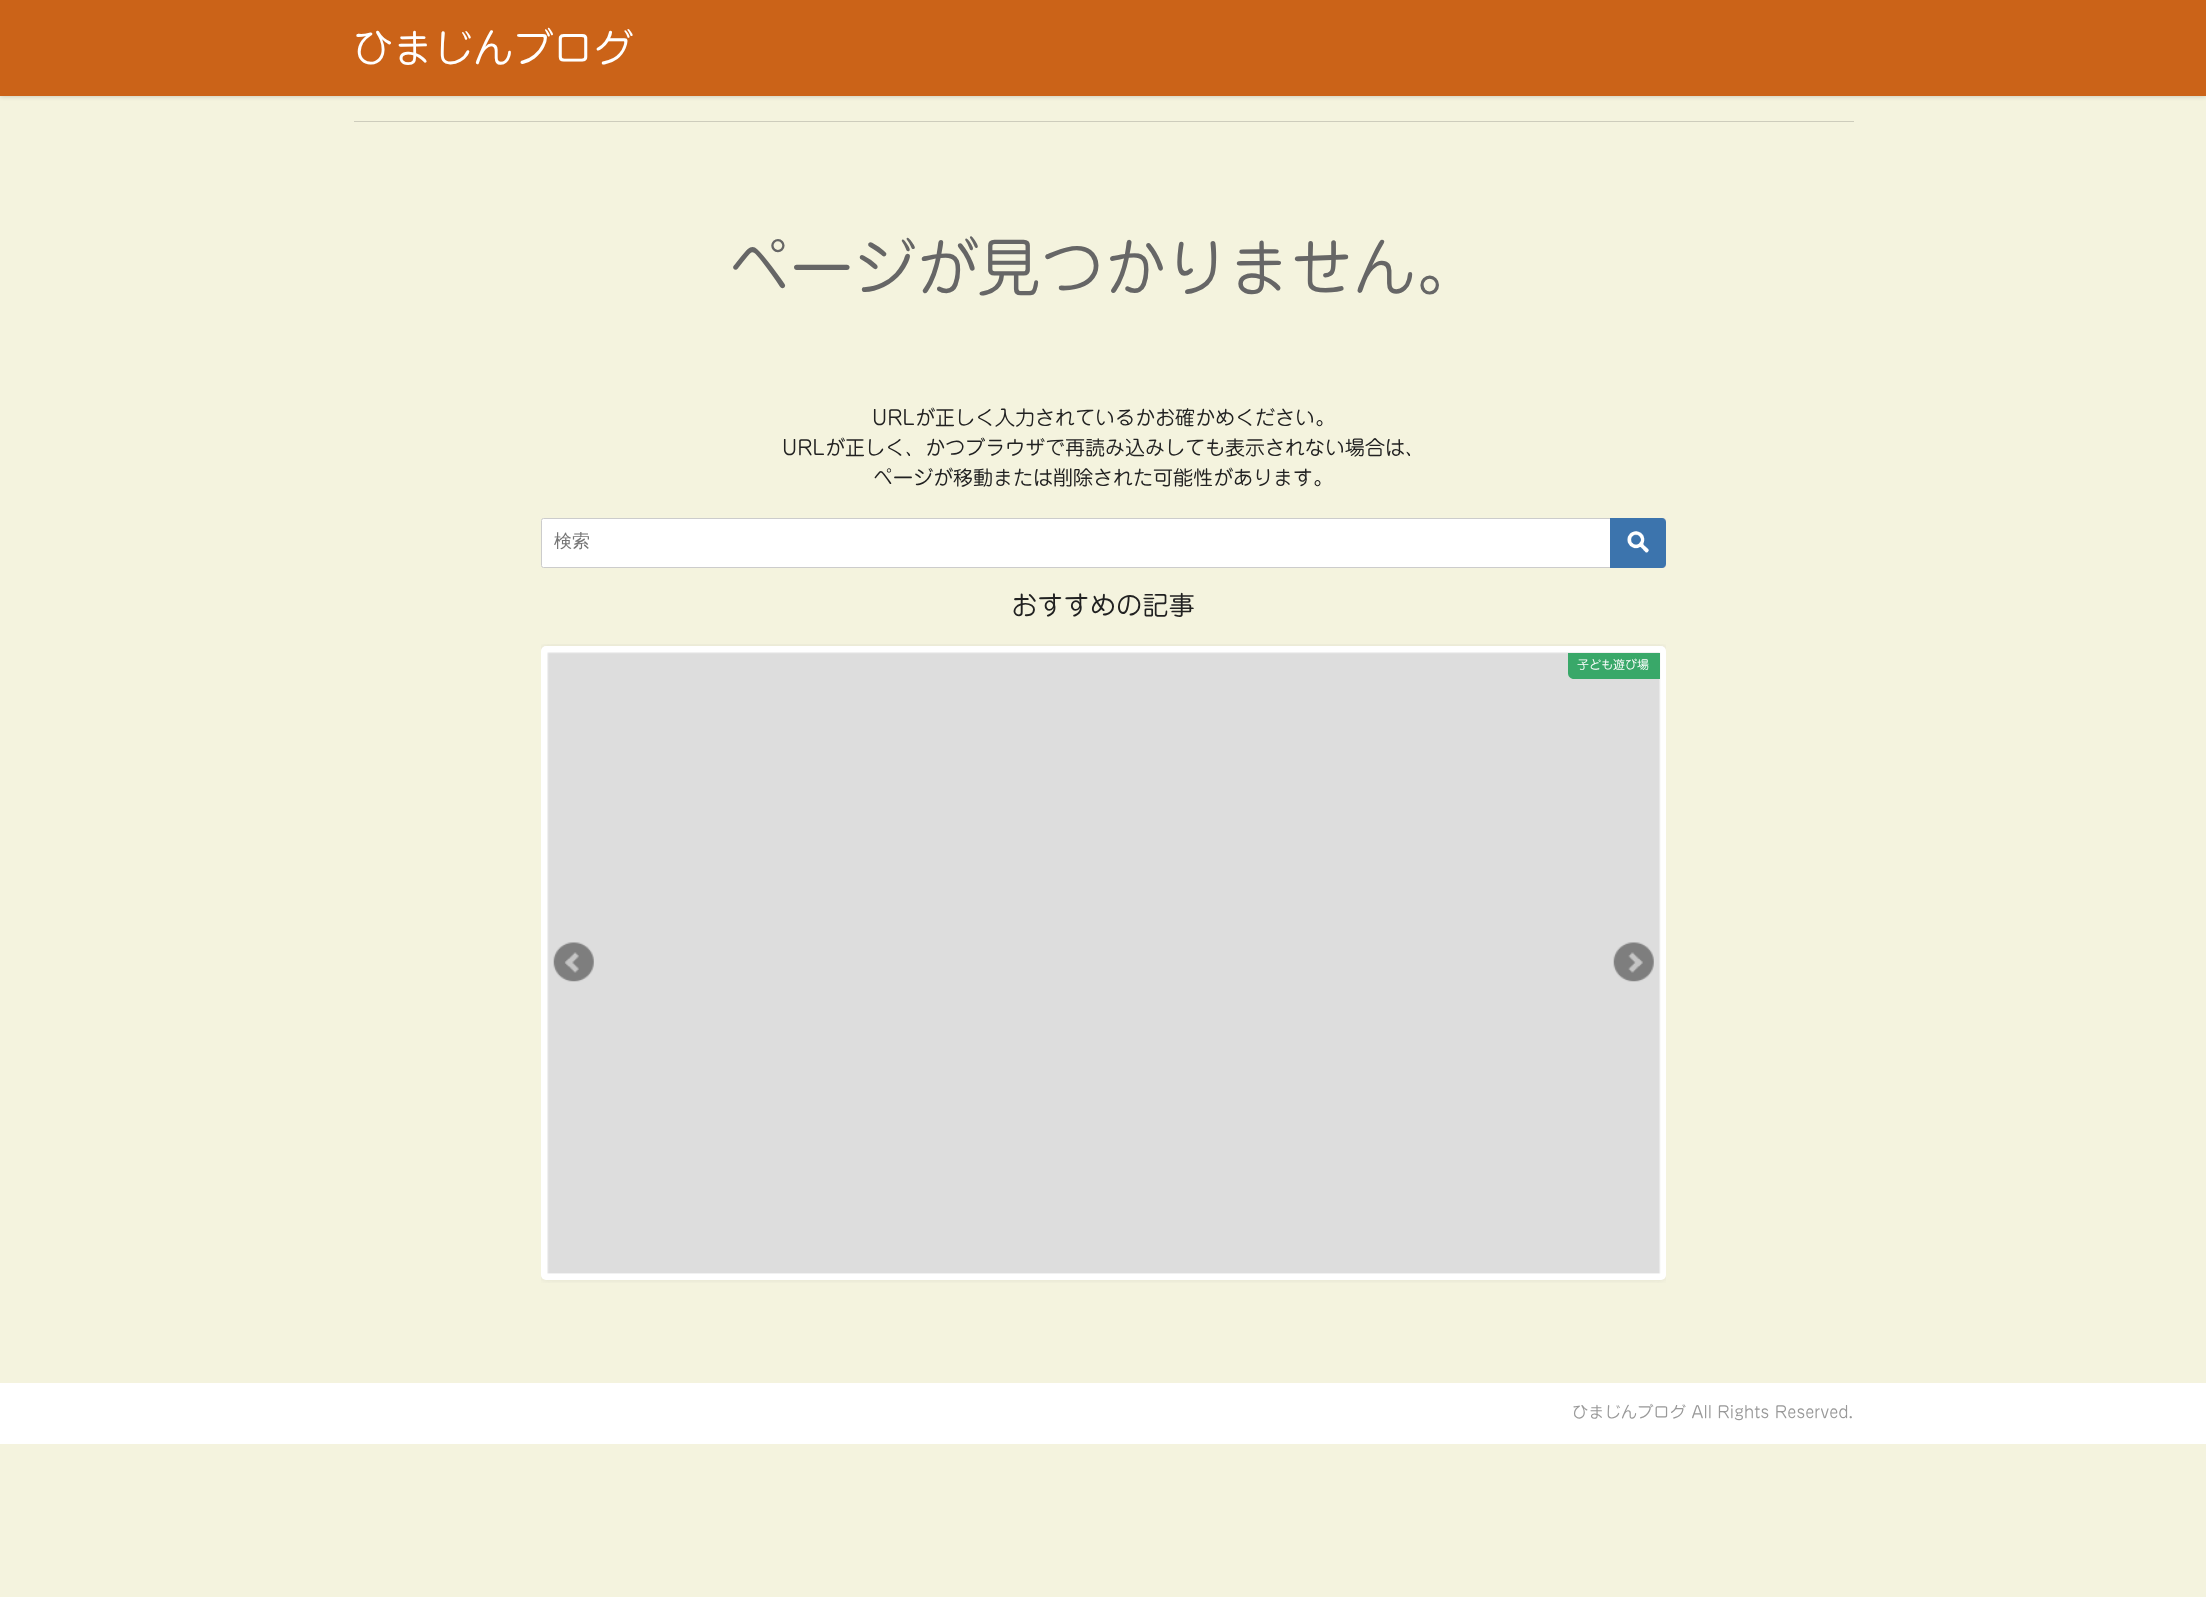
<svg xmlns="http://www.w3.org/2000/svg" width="2206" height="1597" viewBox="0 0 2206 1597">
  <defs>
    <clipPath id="clip1"><path d="M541 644h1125v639H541z"/></clipPath>
  </defs>
  <rect width="100%" height="100%" fill="#f4f3de"/>
  <path d="M0 0h2206v96H0z" fill="#00000033" filter="blur(2.5px)"/>
  <path d="M0 0h2206v96H0z" fill="#cb6318"/>
  <path d="M354 121h1500v1H354z" fill="#cdccbc"/>
  <rect x="541.5" y="518.5" width="1124" height="49" rx="2" fill="#fff" stroke="#ccc"/>
  <path d="M1610 518H1662C1664 518 1666 520 1666 522V564C1666 566 1664 568 1662 568H1610Z" fill="#3c74ad"/>
  <image x="1627" y="531" width="22" height="22" href="img/1.png"/>
  <g clip-path="url(#clip1)">
    <rect x="541" y="646" width="1125" height="634" rx="5" fill="#96969633" filter="blur(3px)"/>
  </g>
  <rect x="541" y="646" width="1125" height="634" rx="5" fill="#fff"/>
  <image x="547" y="652" width="1114" height="622" href="img/2.png"/>
  <path d="M1568 653H1660V679H1574C1570.5 679 1568 676.5 1568 673Z" fill="#39a869"/>
  <image x="553" y="942" width="41" height="40" href="img/3.png"/>
  <image x="1613" y="942" width="41" height="40" href="img/4.png"/>
  <path d="M0 1383h2206v61H0z" fill="#fff"/>
  <text x="353" y="63" font-family="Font" font-size="40" fill="#fff">ひまじんブログ</text>
  <text x="728" y="291" font-family="Font" font-size="62.5" fill="#666">ページが見つかりません。</text>
  <g font-family="Font" font-size="20" fill="#212121">
    <text x="872" y="425">URLが正しく入力されているかお確かめください。</text>
    <text x="782" y="455">URLが正しく、かつブラウザで再読み込みしても表示されない場合は、</text>
    <text x="873" y="485">ページが移動または削除された可能性があります。</text>
  </g>
  <text x="554" y="547" font-family="WenQuanYi Zen Hei" font-size="18" font-weight="500" fill="#757575">検索</text>
  <text x="1011" y="615" font-family="Font" font-size="26.25" fill="#212121">おすすめの記事</text>
  <text x="1577" y="669" font-family="Font" font-size="12" fill="#fff">子ども遊び場</text>
  <text x="1572" y="1418" font-family="Font" font-size="16.25" fill="#999">ひまじんブログ All Rights Reserved.</text>
</svg>
